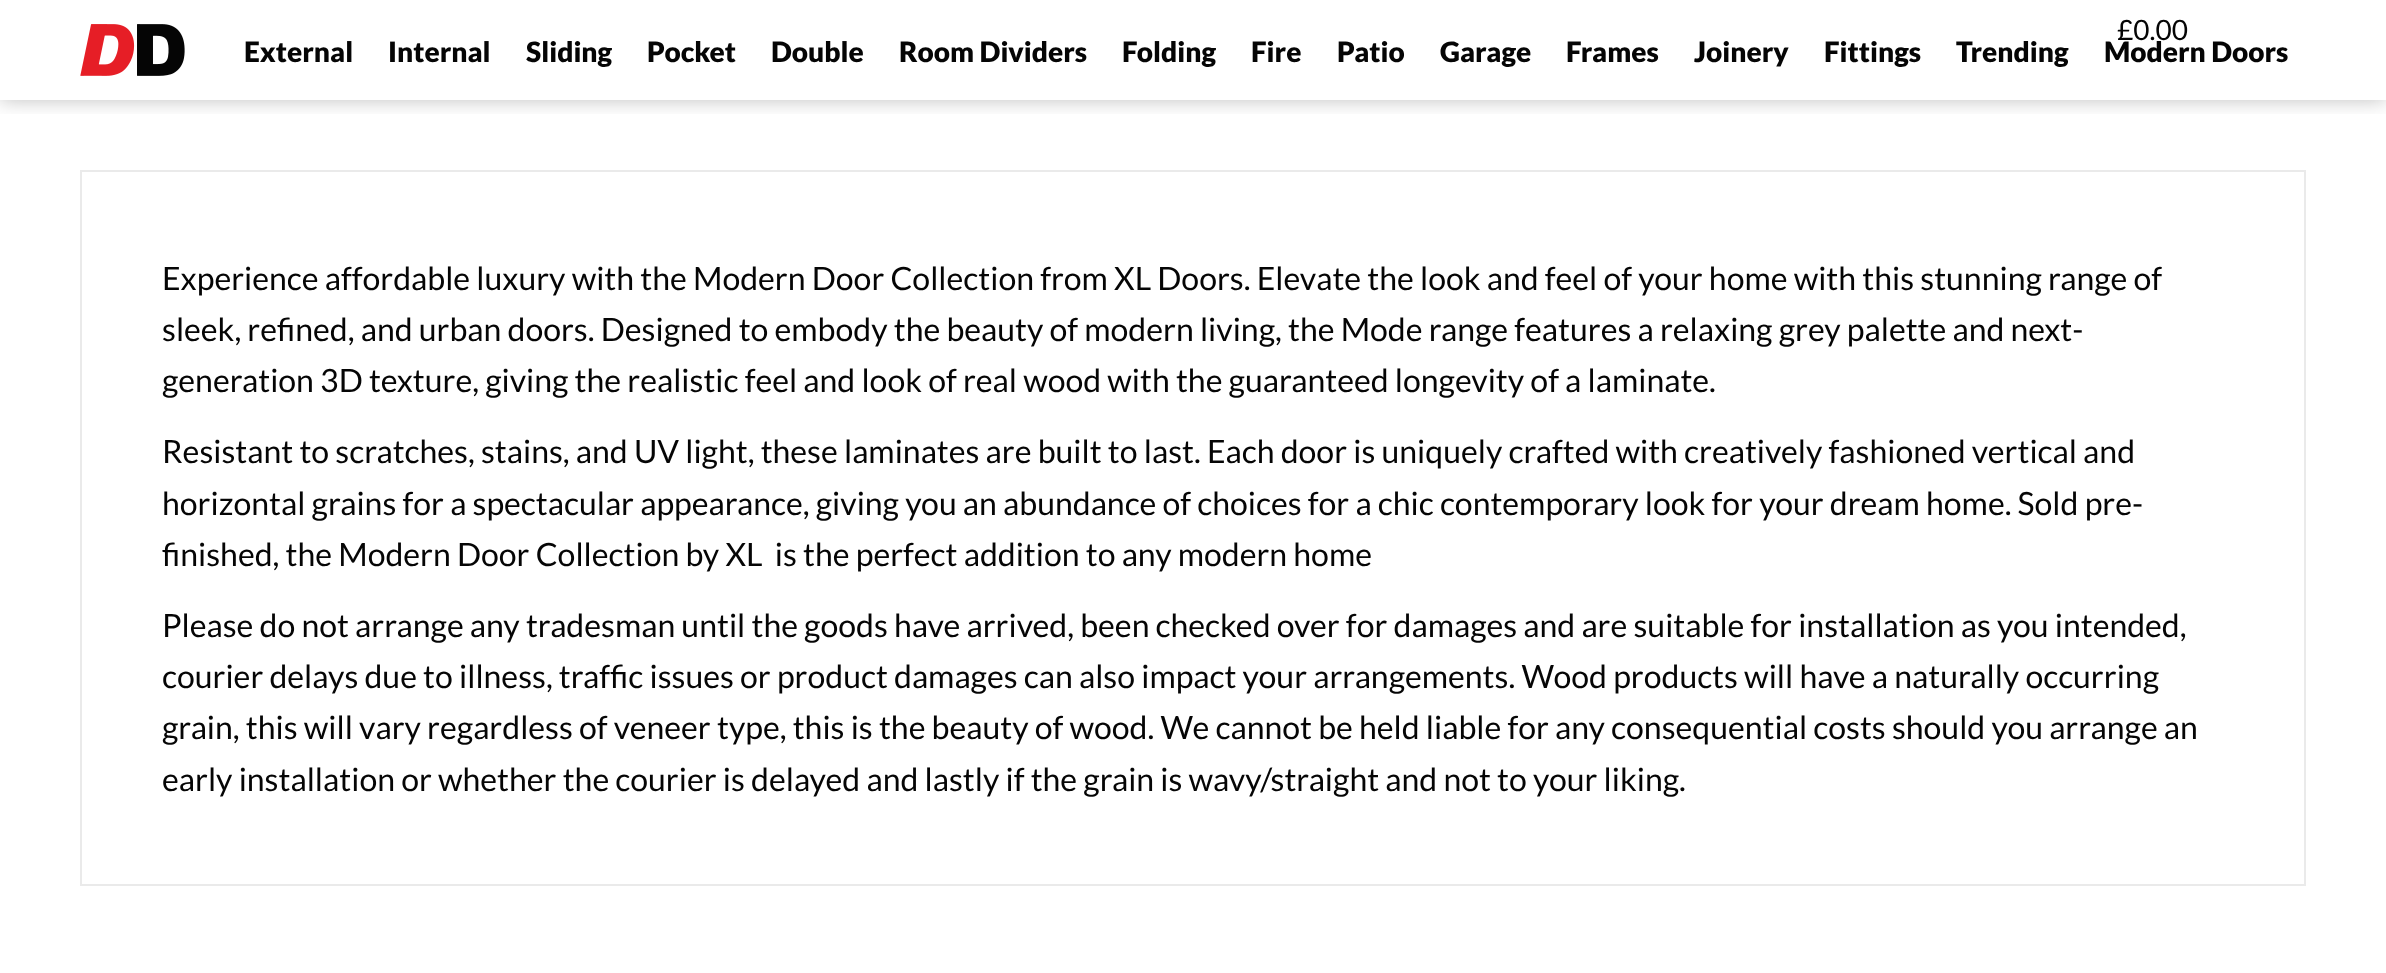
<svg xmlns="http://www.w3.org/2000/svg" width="2386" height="973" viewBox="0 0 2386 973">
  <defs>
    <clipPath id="clip1"><path d="M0 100h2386v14H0z"/></clipPath>
  </defs>
  <rect width="100%" height="100%" fill="#fff"/>
  <g clip-path="url(#clip1)">
    <path d="M0 -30h2386v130H0z" fill="#05050540" filter="blur(10px)"/>
  </g>
  <image x="80" y="24" width="105" height="52" href="img/1.png"/>
  <path d="M81 171h2224v714H81z" fill="none" stroke="#eaeaea" stroke-width="2"/>
  <text x="2117" y="40" font-family="Lato" font-size="28" fill="#050505">£0.00</text>
  <g font-family="Lato" font-size="28" font-weight="900" fill="#050505">
    <text x="244" y="62">External</text>
    <text x="388" y="62">Internal</text>
    <text x="526" y="62">Sliding</text>
    <text x="647" y="62">Pocket</text>
    <text x="771" y="62">Double</text>
    <text x="899" y="62">Room Dividers</text>
    <text x="1122" y="62">Folding</text>
    <text x="1251" y="62">Fire</text>
    <text x="1337" y="62">Patio</text>
    <text x="1440" y="62">Garage</text>
    <text x="1566" y="62">Frames</text>
    <text x="1694" y="62">Joinery</text>
    <text x="1824" y="62">Fittings</text>
    <text x="1956" y="62">Trending</text>
    <text x="2104" y="62">Modern Doors</text>
  </g>
  <g font-family="Lato" font-size="32" fill="#050505">
    <text x="162" y="290">Experience affordable luxury with the Modern Door Collection from XL Doors. Elevate the look and feel of your home with this stunning range of</text>
    <text x="162" y="341">sleek, refined, and urban doors. Designed to embody the beauty of modern living, the Mode range features a relaxing grey palette and next-</text>
    <text x="162" y="392">generation 3D texture, giving the realistic feel and look of real wood with the guaranteed longevity of a laminate.</text>
    <text x="162" y="463">Resistant to scratches, stains, and UV light, these laminates are built to last. Each door is uniquely crafted with creatively fashioned vertical and</text>
    <text x="162" y="515">horizontal grains for a spectacular appearance, giving you an abundance of choices for a chic contemporary look for your dream home. Sold pre-</text>
    <text x="162" y="566" xml:space="preserve">finished, the Modern Door Collection by XL  is the perfect addition to any modern home</text>
    <text x="162" y="637">Please do not arrange any tradesman until the goods have arrived, been checked over for damages and are suitable for installation as you intended,</text>
    <text x="162" y="688">courier delays due to illness, traffic issues or product damages can also impact your arrangements. Wood products will have a naturally occurring</text>
    <text x="162" y="739">grain, this will vary regardless of veneer type, this is the beauty of wood. We cannot be held liable for any consequential costs should you arrange an</text>
    <text x="162" y="791">early installation or whether the courier is delayed and lastly if the grain is wavy/straight and not to your liking.</text>
  </g>
</svg>
